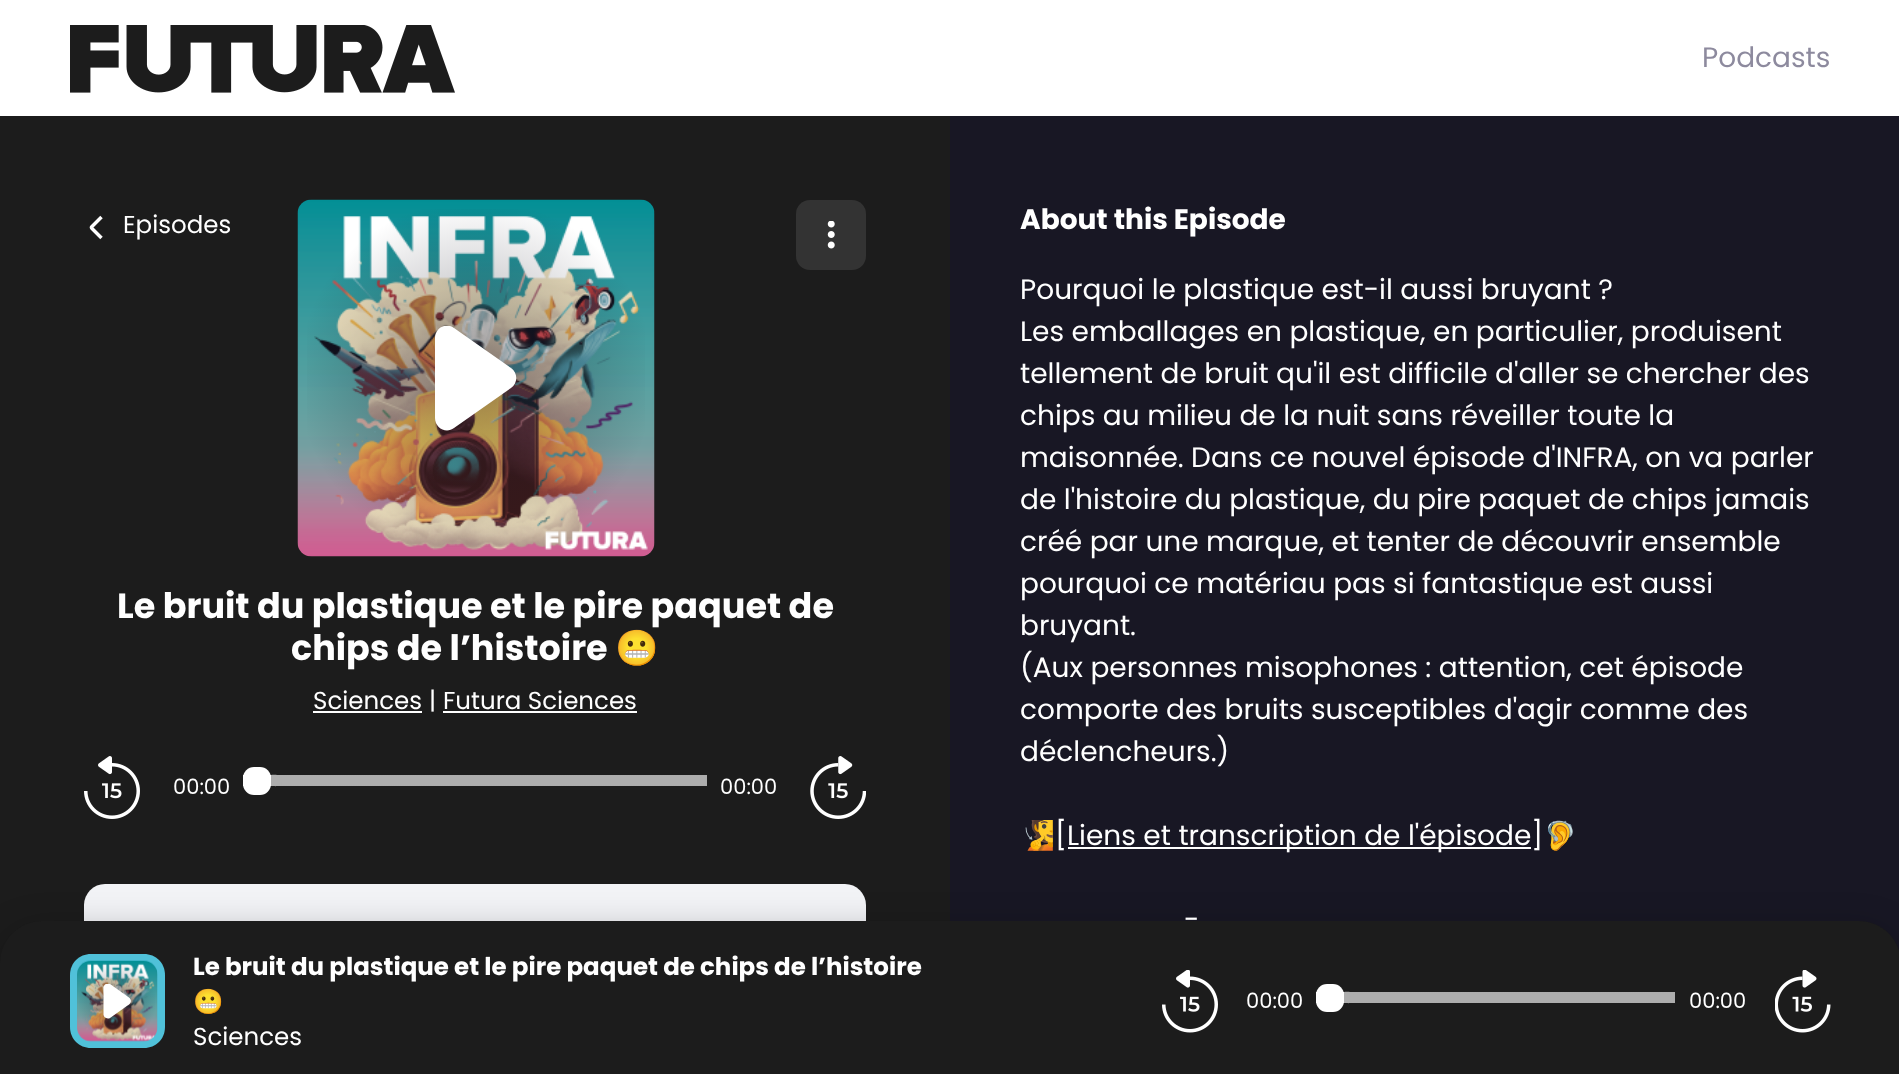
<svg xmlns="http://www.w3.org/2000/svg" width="1899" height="1074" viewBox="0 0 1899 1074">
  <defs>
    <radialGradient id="g1" gradientUnits="userSpaceOnUse" cx="476" cy="378" r="179"><stop offset="0" stop-color="#181724" stop-opacity="0.4"/><stop offset="1" stop-color="#181724" stop-opacity="0"/></radialGradient>
    <clipPath id="clip1"><path d="M424 326h105v105H424z"/></clipPath>
    <clipPath id="clip2"><path d="M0 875H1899V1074H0ZM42 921H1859C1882 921 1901 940 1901 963V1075H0V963C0 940 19 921 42 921Z" clip-rule="evenodd"/></clipPath>
    <radialGradient id="g2" gradientUnits="userSpaceOnUse" cx="117" cy="1001" r="40"><stop offset="0" stop-color="#181724" stop-opacity="0.4"/><stop offset="1" stop-color="#181724" stop-opacity="0"/></radialGradient>
    <clipPath id="clip3"><path d="M100 984h35v35H100z"/></clipPath>
    <clipPath id="clip4"><path d="M193 949h757v70H193z"/></clipPath>
  </defs>
  <rect width="100%" height="100%" fill="#fff"/>
  <image x="70" y="25" width="385" height="68" href="img/1.png"/>
  <path d="M0 116h950v847H0z" fill="#1c1c1c"/>
  <path d="M101.5 217L92 226.5C91.5 227 91.5 228 92 228.5L101.5 238" fill="none" stroke="#fff" stroke-width="3.5"/>
  <rect x="796" y="200" width="70" height="70" rx="14" fill="#333"/>
  <image x="827" y="221" width="8" height="28" href="img/2.png"/>
  <image x="297" y="199" width="358" height="358" href="img/3.png"/>
  <path d="M307 209h338v338H307z" fill="url(#g1)"/>
  <g clip-path="url(#clip1)">
    <path d="M435 418V338C435 328 446 322 454 328L511 368C518 373 518 383 511 388L454 428C446 434 435 428 435 418Z" fill="#fff"/>
  </g>
  <path d="M313 711h109v2H313z" fill="#fff"/>
  <path d="M443 711h194v2H443z" fill="#fff"/>
  <image x="84" y="756" width="56" height="63" href="img/4.png"/>
  <path d="M243 775h28v11H243z" fill="#fff"/>
  <path d="M705 775h2v11H705z" fill="#adadad"/>
  <rect x="697" y="775" width="10" height="11" rx="2" fill="#adadad"/>
  <rect x="695" y="775" width="10" height="11" rx="2" fill="#adadad"/>
  <rect x="693" y="775" width="11" height="11" rx="2" fill="#adadad"/>
  <rect x="691" y="775" width="11" height="11" rx="2" fill="#adadad"/>
  <rect x="690" y="775" width="10" height="11" rx="2" fill="#adadad"/>
  <rect x="688" y="775" width="10" height="11" rx="2" fill="#adadad"/>
  <rect x="686" y="775" width="11" height="11" rx="2" fill="#adadad"/>
  <rect x="684" y="775" width="11" height="11" rx="2" fill="#adadad"/>
  <rect x="683" y="775" width="10" height="11" rx="2" fill="#adadad"/>
  <rect x="681" y="775" width="10" height="11" rx="2" fill="#adadad"/>
  <rect x="679" y="775" width="11" height="11" rx="2" fill="#adadad"/>
  <rect x="677" y="775" width="11" height="11" rx="2" fill="#adadad"/>
  <rect x="676" y="775" width="10" height="11" rx="2" fill="#adadad"/>
  <rect x="674" y="775" width="10" height="11" rx="2" fill="#adadad"/>
  <rect x="672" y="775" width="11" height="11" rx="2" fill="#adadad"/>
  <rect x="670" y="775" width="11" height="11" rx="2" fill="#adadad"/>
  <rect x="669" y="775" width="10" height="11" rx="2" fill="#adadad"/>
  <rect x="667" y="775" width="10" height="11" rx="2" fill="#adadad"/>
  <rect x="665" y="775" width="11" height="11" rx="2" fill="#adadad"/>
  <rect x="663" y="775" width="11" height="11" rx="2" fill="#adadad"/>
  <rect x="662" y="775" width="10" height="11" rx="2" fill="#adadad"/>
  <rect x="660" y="775" width="10" height="11" rx="2" fill="#adadad"/>
  <rect x="658" y="775" width="11" height="11" rx="2" fill="#adadad"/>
  <rect x="656" y="775" width="11" height="11" rx="2" fill="#adadad"/>
  <rect x="655" y="775" width="10" height="11" rx="2" fill="#adadad"/>
  <rect x="653" y="775" width="10" height="11" rx="2" fill="#adadad"/>
  <rect x="651" y="775" width="11" height="11" rx="2" fill="#adadad"/>
  <rect x="649" y="775" width="11" height="11" rx="2" fill="#adadad"/>
  <rect x="648" y="775" width="10" height="11" rx="2" fill="#adadad"/>
  <rect x="646" y="775" width="10" height="11" rx="2" fill="#adadad"/>
  <rect x="644" y="775" width="11" height="11" rx="2" fill="#adadad"/>
  <rect x="642" y="775" width="11" height="11" rx="2" fill="#adadad"/>
  <rect x="641" y="775" width="10" height="11" rx="2" fill="#adadad"/>
  <rect x="639" y="775" width="10" height="11" rx="2" fill="#adadad"/>
  <rect x="637" y="775" width="11" height="11" rx="2" fill="#adadad"/>
  <rect x="635" y="775" width="11" height="11" rx="2" fill="#adadad"/>
  <rect x="634" y="775" width="10" height="11" rx="2" fill="#adadad"/>
  <rect x="632" y="775" width="10" height="11" rx="2" fill="#adadad"/>
  <rect x="630" y="775" width="11" height="11" rx="2" fill="#adadad"/>
  <rect x="628" y="775" width="11" height="11" rx="2" fill="#adadad"/>
  <rect x="627" y="775" width="10" height="11" rx="2" fill="#adadad"/>
  <rect x="625" y="775" width="10" height="11" rx="2" fill="#adadad"/>
  <rect x="623" y="775" width="11" height="11" rx="2" fill="#adadad"/>
  <rect x="621" y="775" width="11" height="11" rx="2" fill="#adadad"/>
  <rect x="620" y="775" width="10" height="11" rx="2" fill="#adadad"/>
  <rect x="618" y="775" width="10" height="11" rx="2" fill="#adadad"/>
  <rect x="616" y="775" width="11" height="11" rx="2" fill="#adadad"/>
  <rect x="614" y="775" width="11" height="11" rx="2" fill="#adadad"/>
  <rect x="613" y="775" width="10" height="11" rx="2" fill="#adadad"/>
  <rect x="611" y="775" width="10" height="11" rx="2" fill="#adadad"/>
  <rect x="609" y="775" width="11" height="11" rx="2" fill="#adadad"/>
  <rect x="607" y="775" width="11" height="11" rx="2" fill="#adadad"/>
  <rect x="606" y="775" width="10" height="11" rx="2" fill="#adadad"/>
  <rect x="604" y="775" width="10" height="11" rx="2" fill="#adadad"/>
  <rect x="602" y="775" width="11" height="11" rx="2" fill="#adadad"/>
  <rect x="600" y="775" width="11" height="11" rx="2" fill="#adadad"/>
  <rect x="599" y="775" width="10" height="11" rx="2" fill="#adadad"/>
  <rect x="597" y="775" width="10" height="11" rx="2" fill="#adadad"/>
  <rect x="595" y="775" width="11" height="11" rx="2" fill="#adadad"/>
  <rect x="593" y="775" width="11" height="11" rx="2" fill="#adadad"/>
  <rect x="592" y="775" width="10" height="11" rx="2" fill="#adadad"/>
  <rect x="590" y="775" width="10" height="11" rx="2" fill="#adadad"/>
  <rect x="588" y="775" width="11" height="11" rx="2" fill="#adadad"/>
  <rect x="586" y="775" width="11" height="11" rx="2" fill="#adadad"/>
  <rect x="585" y="775" width="10" height="11" rx="2" fill="#adadad"/>
  <rect x="583" y="775" width="10" height="11" rx="2" fill="#adadad"/>
  <rect x="581" y="775" width="11" height="11" rx="2" fill="#adadad"/>
  <rect x="579" y="775" width="11" height="11" rx="2" fill="#adadad"/>
  <rect x="578" y="775" width="10" height="11" rx="2" fill="#adadad"/>
  <rect x="576" y="775" width="10" height="11" rx="2" fill="#adadad"/>
  <rect x="574" y="775" width="11" height="11" rx="2" fill="#adadad"/>
  <rect x="572" y="775" width="11" height="11" rx="2" fill="#adadad"/>
  <rect x="571" y="775" width="10" height="11" rx="2" fill="#adadad"/>
  <rect x="569" y="775" width="10" height="11" rx="2" fill="#adadad"/>
  <rect x="567" y="775" width="11" height="11" rx="2" fill="#adadad"/>
  <rect x="565" y="775" width="11" height="11" rx="2" fill="#adadad"/>
  <rect x="564" y="775" width="10" height="11" rx="2" fill="#adadad"/>
  <rect x="562" y="775" width="10" height="11" rx="2" fill="#adadad"/>
  <rect x="560" y="775" width="11" height="11" rx="2" fill="#adadad"/>
  <rect x="558" y="775" width="11" height="11" rx="2" fill="#adadad"/>
  <rect x="557" y="775" width="10" height="11" rx="2" fill="#adadad"/>
  <rect x="555" y="775" width="10" height="11" rx="2" fill="#adadad"/>
  <rect x="553" y="775" width="11" height="11" rx="2" fill="#adadad"/>
  <rect x="551" y="775" width="11" height="11" rx="2" fill="#adadad"/>
  <rect x="550" y="775" width="10" height="11" rx="2" fill="#adadad"/>
  <rect x="548" y="775" width="10" height="11" rx="2" fill="#adadad"/>
  <rect x="546" y="775" width="11" height="11" rx="2" fill="#adadad"/>
  <rect x="544" y="775" width="11" height="11" rx="2" fill="#adadad"/>
  <rect x="543" y="775" width="10" height="11" rx="2" fill="#adadad"/>
  <rect x="541" y="775" width="10" height="11" rx="2" fill="#adadad"/>
  <rect x="539" y="775" width="11" height="11" rx="2" fill="#adadad"/>
  <rect x="537" y="775" width="11" height="11" rx="2" fill="#adadad"/>
  <rect x="536" y="775" width="10" height="11" rx="2" fill="#adadad"/>
  <rect x="534" y="775" width="10" height="11" rx="2" fill="#adadad"/>
  <rect x="532" y="775" width="11" height="11" rx="2" fill="#adadad"/>
  <rect x="530" y="775" width="11" height="11" rx="2" fill="#adadad"/>
  <rect x="529" y="775" width="10" height="11" rx="2" fill="#adadad"/>
  <rect x="527" y="775" width="10" height="11" rx="2" fill="#adadad"/>
  <rect x="525" y="775" width="11" height="11" rx="2" fill="#adadad"/>
  <rect x="523" y="775" width="11" height="11" rx="2" fill="#adadad"/>
  <rect x="522" y="775" width="10" height="11" rx="2" fill="#adadad"/>
  <rect x="520" y="775" width="10" height="11" rx="2" fill="#adadad"/>
  <rect x="518" y="775" width="11" height="11" rx="2" fill="#adadad"/>
  <rect x="516" y="775" width="11" height="11" rx="2" fill="#adadad"/>
  <rect x="515" y="775" width="10" height="11" rx="2" fill="#adadad"/>
  <rect x="513" y="775" width="10" height="11" rx="2" fill="#adadad"/>
  <rect x="511" y="775" width="11" height="11" rx="2" fill="#adadad"/>
  <rect x="509" y="775" width="11" height="11" rx="2" fill="#adadad"/>
  <rect x="508" y="775" width="10" height="11" rx="2" fill="#adadad"/>
  <rect x="506" y="775" width="10" height="11" rx="2" fill="#adadad"/>
  <rect x="504" y="775" width="11" height="11" rx="2" fill="#adadad"/>
  <rect x="502" y="775" width="11" height="11" rx="2" fill="#adadad"/>
  <rect x="501" y="775" width="10" height="11" rx="2" fill="#adadad"/>
  <rect x="499" y="775" width="10" height="11" rx="2" fill="#adadad"/>
  <rect x="497" y="775" width="11" height="11" rx="2" fill="#adadad"/>
  <rect x="495" y="775" width="11" height="11" rx="2" fill="#adadad"/>
  <rect x="494" y="775" width="10" height="11" rx="2" fill="#adadad"/>
  <rect x="492" y="775" width="10" height="11" rx="2" fill="#adadad"/>
  <rect x="490" y="775" width="11" height="11" rx="2" fill="#adadad"/>
  <rect x="488" y="775" width="11" height="11" rx="2" fill="#adadad"/>
  <rect x="487" y="775" width="10" height="11" rx="2" fill="#adadad"/>
  <rect x="485" y="775" width="10" height="11" rx="2" fill="#adadad"/>
  <rect x="483" y="775" width="11" height="11" rx="2" fill="#adadad"/>
  <rect x="481" y="775" width="11" height="11" rx="2" fill="#adadad"/>
  <rect x="480" y="775" width="10" height="11" rx="2" fill="#adadad"/>
  <rect x="478" y="775" width="10" height="11" rx="2" fill="#adadad"/>
  <rect x="476" y="775" width="11" height="11" rx="2" fill="#adadad"/>
  <rect x="474" y="775" width="11" height="11" rx="2" fill="#adadad"/>
  <rect x="473" y="775" width="10" height="11" rx="2" fill="#adadad"/>
  <rect x="471" y="775" width="10" height="11" rx="2" fill="#adadad"/>
  <rect x="469" y="775" width="11" height="11" rx="2" fill="#adadad"/>
  <rect x="467" y="775" width="11" height="11" rx="2" fill="#adadad"/>
  <rect x="466" y="775" width="10" height="11" rx="2" fill="#adadad"/>
  <rect x="464" y="775" width="10" height="11" rx="2" fill="#adadad"/>
  <rect x="462" y="775" width="11" height="11" rx="2" fill="#adadad"/>
  <rect x="460" y="775" width="11" height="11" rx="2" fill="#adadad"/>
  <rect x="459" y="775" width="10" height="11" rx="2" fill="#adadad"/>
  <rect x="457" y="775" width="10" height="11" rx="2" fill="#adadad"/>
  <rect x="455" y="775" width="11" height="11" rx="2" fill="#adadad"/>
  <rect x="453" y="775" width="11" height="11" rx="2" fill="#adadad"/>
  <rect x="452" y="775" width="10" height="11" rx="2" fill="#adadad"/>
  <rect x="450" y="775" width="10" height="11" rx="2" fill="#adadad"/>
  <rect x="448" y="775" width="11" height="11" rx="2" fill="#adadad"/>
  <rect x="446" y="775" width="11" height="11" rx="2" fill="#adadad"/>
  <rect x="445" y="775" width="10" height="11" rx="2" fill="#adadad"/>
  <rect x="443" y="775" width="10" height="11" rx="2" fill="#adadad"/>
  <rect x="441" y="775" width="11" height="11" rx="2" fill="#adadad"/>
  <rect x="439" y="775" width="11" height="11" rx="2" fill="#adadad"/>
  <rect x="438" y="775" width="10" height="11" rx="2" fill="#adadad"/>
  <rect x="436" y="775" width="10" height="11" rx="2" fill="#adadad"/>
  <rect x="434" y="775" width="11" height="11" rx="2" fill="#adadad"/>
  <rect x="432" y="775" width="11" height="11" rx="2" fill="#adadad"/>
  <rect x="431" y="775" width="10" height="11" rx="2" fill="#adadad"/>
  <rect x="429" y="775" width="10" height="11" rx="2" fill="#adadad"/>
  <rect x="427" y="775" width="11" height="11" rx="2" fill="#adadad"/>
  <rect x="425" y="775" width="11" height="11" rx="2" fill="#adadad"/>
  <rect x="424" y="775" width="10" height="11" rx="2" fill="#adadad"/>
  <rect x="422" y="775" width="10" height="11" rx="2" fill="#adadad"/>
  <rect x="420" y="775" width="11" height="11" rx="2" fill="#adadad"/>
  <rect x="418" y="775" width="11" height="11" rx="2" fill="#adadad"/>
  <rect x="417" y="775" width="10" height="11" rx="2" fill="#adadad"/>
  <rect x="415" y="775" width="10" height="11" rx="2" fill="#adadad"/>
  <rect x="413" y="775" width="11" height="11" rx="2" fill="#adadad"/>
  <rect x="411" y="775" width="11" height="11" rx="2" fill="#adadad"/>
  <rect x="410" y="775" width="10" height="11" rx="2" fill="#adadad"/>
  <rect x="408" y="775" width="10" height="11" rx="2" fill="#adadad"/>
  <rect x="406" y="775" width="11" height="11" rx="2" fill="#adadad"/>
  <rect x="404" y="775" width="11" height="11" rx="2" fill="#adadad"/>
  <rect x="403" y="775" width="10" height="11" rx="2" fill="#adadad"/>
  <rect x="401" y="775" width="10" height="11" rx="2" fill="#adadad"/>
  <rect x="399" y="775" width="11" height="11" rx="2" fill="#adadad"/>
  <rect x="397" y="775" width="11" height="11" rx="2" fill="#adadad"/>
  <rect x="396" y="775" width="10" height="11" rx="2" fill="#adadad"/>
  <rect x="394" y="775" width="10" height="11" rx="2" fill="#adadad"/>
  <rect x="392" y="775" width="11" height="11" rx="2" fill="#adadad"/>
  <rect x="390" y="775" width="11" height="11" rx="2" fill="#adadad"/>
  <rect x="389" y="775" width="10" height="11" rx="2" fill="#adadad"/>
  <rect x="387" y="775" width="10" height="11" rx="2" fill="#adadad"/>
  <rect x="385" y="775" width="11" height="11" rx="2" fill="#adadad"/>
  <rect x="383" y="775" width="11" height="11" rx="2" fill="#adadad"/>
  <rect x="382" y="775" width="10" height="11" rx="2" fill="#adadad"/>
  <rect x="380" y="775" width="10" height="11" rx="2" fill="#adadad"/>
  <rect x="378" y="775" width="11" height="11" rx="2" fill="#adadad"/>
  <rect x="376" y="775" width="11" height="11" rx="2" fill="#adadad"/>
  <rect x="375" y="775" width="10" height="11" rx="2" fill="#adadad"/>
  <rect x="373" y="775" width="10" height="11" rx="2" fill="#adadad"/>
  <rect x="371" y="775" width="11" height="11" rx="2" fill="#adadad"/>
  <rect x="369" y="775" width="11" height="11" rx="2" fill="#adadad"/>
  <rect x="368" y="775" width="10" height="11" rx="2" fill="#adadad"/>
  <rect x="366" y="775" width="10" height="11" rx="2" fill="#adadad"/>
  <rect x="364" y="775" width="11" height="11" rx="2" fill="#adadad"/>
  <rect x="362" y="775" width="11" height="11" rx="2" fill="#adadad"/>
  <rect x="361" y="775" width="10" height="11" rx="2" fill="#adadad"/>
  <rect x="359" y="775" width="10" height="11" rx="2" fill="#adadad"/>
  <rect x="357" y="775" width="11" height="11" rx="2" fill="#adadad"/>
  <rect x="355" y="775" width="11" height="11" rx="2" fill="#adadad"/>
  <rect x="354" y="775" width="10" height="11" rx="2" fill="#adadad"/>
  <rect x="352" y="775" width="10" height="11" rx="2" fill="#adadad"/>
  <rect x="350" y="775" width="11" height="11" rx="2" fill="#adadad"/>
  <rect x="348" y="775" width="11" height="11" rx="2" fill="#adadad"/>
  <rect x="347" y="775" width="10" height="11" rx="2" fill="#adadad"/>
  <rect x="345" y="775" width="10" height="11" rx="2" fill="#adadad"/>
  <rect x="343" y="775" width="11" height="11" rx="2" fill="#adadad"/>
  <rect x="341" y="775" width="11" height="11" rx="2" fill="#adadad"/>
  <rect x="340" y="775" width="10" height="11" rx="2" fill="#adadad"/>
  <rect x="338" y="775" width="10" height="11" rx="2" fill="#adadad"/>
  <rect x="336" y="775" width="11" height="11" rx="2" fill="#adadad"/>
  <rect x="334" y="775" width="11" height="11" rx="2" fill="#adadad"/>
  <rect x="333" y="775" width="10" height="11" rx="2" fill="#adadad"/>
  <rect x="331" y="775" width="10" height="11" rx="2" fill="#adadad"/>
  <rect x="329" y="775" width="11" height="11" rx="2" fill="#adadad"/>
  <rect x="327" y="775" width="11" height="11" rx="2" fill="#adadad"/>
  <rect x="326" y="775" width="10" height="11" rx="2" fill="#adadad"/>
  <rect x="324" y="775" width="10" height="11" rx="2" fill="#adadad"/>
  <rect x="322" y="775" width="11" height="11" rx="2" fill="#adadad"/>
  <rect x="320" y="775" width="11" height="11" rx="2" fill="#adadad"/>
  <rect x="319" y="775" width="10" height="11" rx="2" fill="#adadad"/>
  <rect x="317" y="775" width="10" height="11" rx="2" fill="#adadad"/>
  <rect x="315" y="775" width="11" height="11" rx="2" fill="#adadad"/>
  <rect x="313" y="775" width="11" height="11" rx="2" fill="#adadad"/>
  <rect x="312" y="775" width="10" height="11" rx="2" fill="#adadad"/>
  <rect x="310" y="775" width="10" height="11" rx="2" fill="#adadad"/>
  <rect x="308" y="775" width="11" height="11" rx="2" fill="#adadad"/>
  <rect x="306" y="775" width="11" height="11" rx="2" fill="#adadad"/>
  <rect x="305" y="775" width="10" height="11" rx="2" fill="#adadad"/>
  <rect x="303" y="775" width="10" height="11" rx="2" fill="#adadad"/>
  <rect x="301" y="775" width="11" height="11" rx="2" fill="#adadad"/>
  <rect x="299" y="775" width="11" height="11" rx="2" fill="#adadad"/>
  <rect x="298" y="775" width="10" height="11" rx="2" fill="#adadad"/>
  <rect x="296" y="775" width="10" height="11" rx="2" fill="#adadad"/>
  <rect x="294" y="775" width="11" height="11" rx="2" fill="#adadad"/>
  <rect x="292" y="775" width="11" height="11" rx="2" fill="#adadad"/>
  <rect x="291" y="775" width="10" height="11" rx="2" fill="#adadad"/>
  <rect x="289" y="775" width="10" height="11" rx="2" fill="#adadad"/>
  <rect x="287" y="775" width="11" height="11" rx="2" fill="#adadad"/>
  <rect x="285" y="775" width="11" height="11" rx="2" fill="#adadad"/>
  <rect x="284" y="775" width="10" height="11" rx="2" fill="#adadad"/>
  <rect x="282" y="775" width="10" height="11" rx="2" fill="#adadad"/>
  <rect x="280" y="775" width="11" height="11" rx="2" fill="#adadad"/>
  <rect x="278" y="775" width="11" height="11" rx="2" fill="#adadad"/>
  <rect x="277" y="775" width="10" height="11" rx="2" fill="#adadad"/>
  <rect x="275" y="775" width="10" height="11" rx="2" fill="#adadad"/>
  <rect x="273" y="775" width="11" height="11" rx="2" fill="#adadad"/>
  <path d="M273 775C272 775 271.5 775.5 271 776V785C272 786.5 274 786 275.5 786C281.5 786 282 787 282 780.5C282 779 282.5 775 280 775Z" fill="#adadad"/>
  <path d="M272 775H271V786H275C280.5 786 280 786 280 780.5C280 779 280.5 775 278 775Z" fill="#adadad"/>
  <path d="M271 786C277.5 786 278 787.5 278 780.5C278 773.5 277.5 775 271 775Z" fill="#adadad"/>
  <rect x="243" y="767" width="28" height="28" rx="11" fill="#fff"/>
  <image x="810" y="756" width="56" height="63" href="img/5.png"/>
  <rect x="84" y="884" width="782" height="101" rx="21" fill="#f2f3f6"/>
  <path d="M950 116h949v835H950z" fill="#181724"/>
  <path d="M1068 847h463v2H1068z" fill="#fff"/>
  <path d="M42 921H1859C1882 921 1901 940 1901 963V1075H0V963C0 940 19 921 42 921Z" fill="#1c1c1c"/>
  <g clip-path="url(#clip2)">
    <rect y="929" width="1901" height="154" rx="42" fill="#0000003d" filter="blur(17.5px)"/>
  </g>
  <path d="M91 954H144C156 954 165 963 165 975V1027C165 1039 156 1048 144 1048H91C79 1048 70 1039 70 1027V975C70 963 79 954 91 954Z" fill="#50c1d9"/>
  <image x="77" y="960" width="81" height="82" href="img/6.png"/>
  <path d="M79 963h76v76H79z" fill="url(#g2)"/>
  <g clip-path="url(#clip3)">
    <path d="M103.5 1014.5V987.5C103.5 984.5 107.5 982.5 110 984L129 997.5C131.5 999.5 131.5 1002.5 129 1004.5L110 1018C107.5 1019.5 103.5 1017.5 103.5 1014.5Z" fill="#fff"/>
  </g>
  <image x="1162" y="970" width="56" height="63" href="img/7.png"/>
  <path d="M1316 992h28v11H1316z" fill="#fff"/>
  <path d="M1673 992h2v11H1673z" fill="#adadad"/>
  <rect x="1664" y="992" width="11" height="11" rx="2" fill="#adadad"/>
  <rect x="1663" y="992" width="10" height="11" rx="2" fill="#adadad"/>
  <rect x="1661" y="992" width="10" height="11" rx="2" fill="#adadad"/>
  <rect x="1659" y="992" width="11" height="11" rx="2" fill="#adadad"/>
  <rect x="1657" y="992" width="11" height="11" rx="2" fill="#adadad"/>
  <rect x="1656" y="992" width="10" height="11" rx="2" fill="#adadad"/>
  <rect x="1654" y="992" width="10" height="11" rx="2" fill="#adadad"/>
  <rect x="1652" y="992" width="11" height="11" rx="2" fill="#adadad"/>
  <rect x="1650" y="992" width="11" height="11" rx="2" fill="#adadad"/>
  <rect x="1649" y="992" width="10" height="11" rx="2" fill="#adadad"/>
  <rect x="1647" y="992" width="10" height="11" rx="2" fill="#adadad"/>
  <rect x="1645" y="992" width="11" height="11" rx="2" fill="#adadad"/>
  <rect x="1643" y="992" width="11" height="11" rx="2" fill="#adadad"/>
  <rect x="1642" y="992" width="10" height="11" rx="2" fill="#adadad"/>
  <rect x="1640" y="992" width="10" height="11" rx="2" fill="#adadad"/>
  <rect x="1638" y="992" width="11" height="11" rx="2" fill="#adadad"/>
  <rect x="1636" y="992" width="11" height="11" rx="2" fill="#adadad"/>
  <rect x="1635" y="992" width="10" height="11" rx="2" fill="#adadad"/>
  <rect x="1633" y="992" width="10" height="11" rx="2" fill="#adadad"/>
  <rect x="1631" y="992" width="11" height="11" rx="2" fill="#adadad"/>
  <rect x="1629" y="992" width="11" height="11" rx="2" fill="#adadad"/>
  <rect x="1628" y="992" width="10" height="11" rx="2" fill="#adadad"/>
  <rect x="1626" y="992" width="10" height="11" rx="2" fill="#adadad"/>
  <rect x="1624" y="992" width="11" height="11" rx="2" fill="#adadad"/>
  <rect x="1622" y="992" width="11" height="11" rx="2" fill="#adadad"/>
  <rect x="1621" y="992" width="10" height="11" rx="2" fill="#adadad"/>
  <rect x="1619" y="992" width="10" height="11" rx="2" fill="#adadad"/>
  <rect x="1617" y="992" width="11" height="11" rx="2" fill="#adadad"/>
  <rect x="1615" y="992" width="11" height="11" rx="2" fill="#adadad"/>
  <rect x="1614" y="992" width="10" height="11" rx="2" fill="#adadad"/>
  <rect x="1612" y="992" width="10" height="11" rx="2" fill="#adadad"/>
  <rect x="1610" y="992" width="11" height="11" rx="2" fill="#adadad"/>
  <rect x="1608" y="992" width="11" height="11" rx="2" fill="#adadad"/>
  <rect x="1607" y="992" width="10" height="11" rx="2" fill="#adadad"/>
  <rect x="1605" y="992" width="10" height="11" rx="2" fill="#adadad"/>
  <rect x="1603" y="992" width="11" height="11" rx="2" fill="#adadad"/>
  <rect x="1601" y="992" width="11" height="11" rx="2" fill="#adadad"/>
  <rect x="1600" y="992" width="10" height="11" rx="2" fill="#adadad"/>
  <rect x="1598" y="992" width="10" height="11" rx="2" fill="#adadad"/>
  <rect x="1596" y="992" width="11" height="11" rx="2" fill="#adadad"/>
  <rect x="1594" y="992" width="11" height="11" rx="2" fill="#adadad"/>
  <rect x="1593" y="992" width="10" height="11" rx="2" fill="#adadad"/>
  <rect x="1591" y="992" width="10" height="11" rx="2" fill="#adadad"/>
  <rect x="1589" y="992" width="11" height="11" rx="2" fill="#adadad"/>
  <rect x="1587" y="992" width="11" height="11" rx="2" fill="#adadad"/>
  <rect x="1586" y="992" width="10" height="11" rx="2" fill="#adadad"/>
  <rect x="1584" y="992" width="10" height="11" rx="2" fill="#adadad"/>
  <rect x="1582" y="992" width="11" height="11" rx="2" fill="#adadad"/>
  <rect x="1580" y="992" width="11" height="11" rx="2" fill="#adadad"/>
  <rect x="1579" y="992" width="10" height="11" rx="2" fill="#adadad"/>
  <rect x="1577" y="992" width="10" height="11" rx="2" fill="#adadad"/>
  <rect x="1575" y="992" width="11" height="11" rx="2" fill="#adadad"/>
  <rect x="1573" y="992" width="11" height="11" rx="2" fill="#adadad"/>
  <rect x="1572" y="992" width="10" height="11" rx="2" fill="#adadad"/>
  <rect x="1570" y="992" width="10" height="11" rx="2" fill="#adadad"/>
  <rect x="1568" y="992" width="11" height="11" rx="2" fill="#adadad"/>
  <rect x="1566" y="992" width="11" height="11" rx="2" fill="#adadad"/>
  <rect x="1565" y="992" width="10" height="11" rx="2" fill="#adadad"/>
  <rect x="1563" y="992" width="10" height="11" rx="2" fill="#adadad"/>
  <rect x="1561" y="992" width="11" height="11" rx="2" fill="#adadad"/>
  <rect x="1559" y="992" width="11" height="11" rx="2" fill="#adadad"/>
  <rect x="1558" y="992" width="10" height="11" rx="2" fill="#adadad"/>
  <rect x="1556" y="992" width="10" height="11" rx="2" fill="#adadad"/>
  <rect x="1554" y="992" width="11" height="11" rx="2" fill="#adadad"/>
  <rect x="1552" y="992" width="11" height="11" rx="2" fill="#adadad"/>
  <rect x="1551" y="992" width="10" height="11" rx="2" fill="#adadad"/>
  <rect x="1549" y="992" width="10" height="11" rx="2" fill="#adadad"/>
  <rect x="1547" y="992" width="11" height="11" rx="2" fill="#adadad"/>
  <rect x="1545" y="992" width="11" height="11" rx="2" fill="#adadad"/>
  <rect x="1544" y="992" width="10" height="11" rx="2" fill="#adadad"/>
  <rect x="1542" y="992" width="10" height="11" rx="2" fill="#adadad"/>
  <rect x="1540" y="992" width="11" height="11" rx="2" fill="#adadad"/>
  <rect x="1538" y="992" width="11" height="11" rx="2" fill="#adadad"/>
  <rect x="1537" y="992" width="10" height="11" rx="2" fill="#adadad"/>
  <rect x="1535" y="992" width="10" height="11" rx="2" fill="#adadad"/>
  <rect x="1533" y="992" width="11" height="11" rx="2" fill="#adadad"/>
  <rect x="1531" y="992" width="11" height="11" rx="2" fill="#adadad"/>
  <rect x="1530" y="992" width="10" height="11" rx="2" fill="#adadad"/>
  <rect x="1528" y="992" width="10" height="11" rx="2" fill="#adadad"/>
  <rect x="1526" y="992" width="11" height="11" rx="2" fill="#adadad"/>
  <rect x="1524" y="992" width="11" height="11" rx="2" fill="#adadad"/>
  <rect x="1523" y="992" width="10" height="11" rx="2" fill="#adadad"/>
  <rect x="1521" y="992" width="10" height="11" rx="2" fill="#adadad"/>
  <rect x="1519" y="992" width="11" height="11" rx="2" fill="#adadad"/>
  <rect x="1517" y="992" width="11" height="11" rx="2" fill="#adadad"/>
  <rect x="1516" y="992" width="10" height="11" rx="2" fill="#adadad"/>
  <rect x="1514" y="992" width="10" height="11" rx="2" fill="#adadad"/>
  <rect x="1512" y="992" width="11" height="11" rx="2" fill="#adadad"/>
  <rect x="1510" y="992" width="11" height="11" rx="2" fill="#adadad"/>
  <rect x="1509" y="992" width="10" height="11" rx="2" fill="#adadad"/>
  <rect x="1507" y="992" width="10" height="11" rx="2" fill="#adadad"/>
  <rect x="1505" y="992" width="11" height="11" rx="2" fill="#adadad"/>
  <rect x="1503" y="992" width="11" height="11" rx="2" fill="#adadad"/>
  <rect x="1502" y="992" width="10" height="11" rx="2" fill="#adadad"/>
  <rect x="1500" y="992" width="10" height="11" rx="2" fill="#adadad"/>
  <rect x="1498" y="992" width="11" height="11" rx="2" fill="#adadad"/>
  <rect x="1496" y="992" width="11" height="11" rx="2" fill="#adadad"/>
  <rect x="1495" y="992" width="10" height="11" rx="2" fill="#adadad"/>
  <rect x="1493" y="992" width="10" height="11" rx="2" fill="#adadad"/>
  <rect x="1491" y="992" width="11" height="11" rx="2" fill="#adadad"/>
  <rect x="1489" y="992" width="11" height="11" rx="2" fill="#adadad"/>
  <rect x="1488" y="992" width="10" height="11" rx="2" fill="#adadad"/>
  <rect x="1486" y="992" width="10" height="11" rx="2" fill="#adadad"/>
  <rect x="1484" y="992" width="11" height="11" rx="2" fill="#adadad"/>
  <rect x="1482" y="992" width="11" height="11" rx="2" fill="#adadad"/>
  <rect x="1481" y="992" width="10" height="11" rx="2" fill="#adadad"/>
  <rect x="1479" y="992" width="10" height="11" rx="2" fill="#adadad"/>
  <rect x="1477" y="992" width="11" height="11" rx="2" fill="#adadad"/>
  <rect x="1475" y="992" width="11" height="11" rx="2" fill="#adadad"/>
  <rect x="1474" y="992" width="10" height="11" rx="2" fill="#adadad"/>
  <rect x="1472" y="992" width="10" height="11" rx="2" fill="#adadad"/>
  <rect x="1470" y="992" width="11" height="11" rx="2" fill="#adadad"/>
  <rect x="1468" y="992" width="11" height="11" rx="2" fill="#adadad"/>
  <rect x="1467" y="992" width="10" height="11" rx="2" fill="#adadad"/>
  <rect x="1465" y="992" width="10" height="11" rx="2" fill="#adadad"/>
  <rect x="1463" y="992" width="11" height="11" rx="2" fill="#adadad"/>
  <rect x="1461" y="992" width="11" height="11" rx="2" fill="#adadad"/>
  <rect x="1460" y="992" width="10" height="11" rx="2" fill="#adadad"/>
  <rect x="1458" y="992" width="10" height="11" rx="2" fill="#adadad"/>
  <rect x="1456" y="992" width="11" height="11" rx="2" fill="#adadad"/>
  <rect x="1454" y="992" width="11" height="11" rx="2" fill="#adadad"/>
  <rect x="1453" y="992" width="10" height="11" rx="2" fill="#adadad"/>
  <rect x="1451" y="992" width="10" height="11" rx="2" fill="#adadad"/>
  <rect x="1449" y="992" width="11" height="11" rx="2" fill="#adadad"/>
  <rect x="1447" y="992" width="11" height="11" rx="2" fill="#adadad"/>
  <rect x="1446" y="992" width="10" height="11" rx="2" fill="#adadad"/>
  <rect x="1444" y="992" width="10" height="11" rx="2" fill="#adadad"/>
  <rect x="1442" y="992" width="11" height="11" rx="2" fill="#adadad"/>
  <rect x="1440" y="992" width="11" height="11" rx="2" fill="#adadad"/>
  <rect x="1439" y="992" width="10" height="11" rx="2" fill="#adadad"/>
  <rect x="1437" y="992" width="10" height="11" rx="2" fill="#adadad"/>
  <rect x="1435" y="992" width="11" height="11" rx="2" fill="#adadad"/>
  <rect x="1433" y="992" width="11" height="11" rx="2" fill="#adadad"/>
  <rect x="1432" y="992" width="10" height="11" rx="2" fill="#adadad"/>
  <rect x="1430" y="992" width="10" height="11" rx="2" fill="#adadad"/>
  <rect x="1428" y="992" width="11" height="11" rx="2" fill="#adadad"/>
  <rect x="1426" y="992" width="11" height="11" rx="2" fill="#adadad"/>
  <rect x="1425" y="992" width="10" height="11" rx="2" fill="#adadad"/>
  <rect x="1423" y="992" width="10" height="11" rx="2" fill="#adadad"/>
  <rect x="1421" y="992" width="11" height="11" rx="2" fill="#adadad"/>
  <rect x="1419" y="992" width="11" height="11" rx="2" fill="#adadad"/>
  <rect x="1418" y="992" width="10" height="11" rx="2" fill="#adadad"/>
  <rect x="1416" y="992" width="10" height="11" rx="2" fill="#adadad"/>
  <rect x="1414" y="992" width="11" height="11" rx="2" fill="#adadad"/>
  <rect x="1412" y="992" width="11" height="11" rx="2" fill="#adadad"/>
  <rect x="1411" y="992" width="10" height="11" rx="2" fill="#adadad"/>
  <rect x="1409" y="992" width="10" height="11" rx="2" fill="#adadad"/>
  <rect x="1407" y="992" width="11" height="11" rx="2" fill="#adadad"/>
  <rect x="1405" y="992" width="11" height="11" rx="2" fill="#adadad"/>
  <rect x="1404" y="992" width="10" height="11" rx="2" fill="#adadad"/>
  <rect x="1402" y="992" width="10" height="11" rx="2" fill="#adadad"/>
  <rect x="1400" y="992" width="11" height="11" rx="2" fill="#adadad"/>
  <rect x="1398" y="992" width="11" height="11" rx="2" fill="#adadad"/>
  <rect x="1397" y="992" width="10" height="11" rx="2" fill="#adadad"/>
  <rect x="1395" y="992" width="10" height="11" rx="2" fill="#adadad"/>
  <rect x="1393" y="992" width="11" height="11" rx="2" fill="#adadad"/>
  <rect x="1391" y="992" width="11" height="11" rx="2" fill="#adadad"/>
  <rect x="1390" y="992" width="10" height="11" rx="2" fill="#adadad"/>
  <rect x="1388" y="992" width="10" height="11" rx="2" fill="#adadad"/>
  <rect x="1386" y="992" width="11" height="11" rx="2" fill="#adadad"/>
  <rect x="1384" y="992" width="11" height="11" rx="2" fill="#adadad"/>
  <rect x="1383" y="992" width="10" height="11" rx="2" fill="#adadad"/>
  <rect x="1381" y="992" width="10" height="11" rx="2" fill="#adadad"/>
  <rect x="1379" y="992" width="11" height="11" rx="2" fill="#adadad"/>
  <rect x="1377" y="992" width="11" height="11" rx="2" fill="#adadad"/>
  <rect x="1376" y="992" width="10" height="11" rx="2" fill="#adadad"/>
  <rect x="1374" y="992" width="10" height="11" rx="2" fill="#adadad"/>
  <rect x="1372" y="992" width="11" height="11" rx="2" fill="#adadad"/>
  <rect x="1370" y="992" width="11" height="11" rx="2" fill="#adadad"/>
  <rect x="1369" y="992" width="10" height="11" rx="2" fill="#adadad"/>
  <rect x="1367" y="992" width="10" height="11" rx="2" fill="#adadad"/>
  <rect x="1365" y="992" width="11" height="11" rx="2" fill="#adadad"/>
  <rect x="1363" y="992" width="11" height="11" rx="2" fill="#adadad"/>
  <rect x="1362" y="992" width="10" height="11" rx="2" fill="#adadad"/>
  <rect x="1360" y="992" width="10" height="11" rx="2" fill="#adadad"/>
  <rect x="1358" y="992" width="11" height="11" rx="2" fill="#adadad"/>
  <rect x="1356" y="992" width="11" height="11" rx="2" fill="#adadad"/>
  <rect x="1355" y="992" width="10" height="11" rx="2" fill="#adadad"/>
  <rect x="1353" y="992" width="10" height="11" rx="2" fill="#adadad"/>
  <rect x="1351" y="992" width="11" height="11" rx="2" fill="#adadad"/>
  <rect x="1349" y="992" width="11" height="11" rx="2" fill="#adadad"/>
  <rect x="1348" y="992" width="10" height="11" rx="2" fill="#adadad"/>
  <rect x="1346" y="992" width="10" height="11" rx="2" fill="#adadad"/>
  <rect x="1344" y="992" width="11" height="11" rx="2" fill="#adadad"/>
  <path d="M1344 992V1003H1348.5C1353 1003 1353 1003 1353 998.5C1353 997 1354 992 1351 992Z" fill="#adadad"/>
  <path d="M1344 1003C1350.5 1003 1351 1004.5 1351 997.5C1351 990.5 1350.5 992 1344 992Z" fill="#adadad"/>
  <rect x="1316" y="984" width="28" height="28" rx="11" fill="#fff"/>
  <image x="1775" y="970" width="56" height="63" href="img/8.png"/>
  <text x="1702" y="67" font-family="Poppins" font-size="28" fill="#8d8a9e">Podcasts</text>
  <text x="123" y="233" font-family="Poppins" font-size="24.5" fill="#fff">Episodes</text>
  <g font-family="Poppins" font-size="35" font-weight="bold" fill="#fff">
    <text x="117" y="618">Le bruit du plastique et le pire paquet de</text>
    <text x="291" y="660">chips de l’histoire</text>
  </g>
  <text x="615" y="660" font-family="Noto Color Emoji" font-size="35" font-weight="bold" fill="#fff">😬</text>
  <g font-family="Poppins" font-size="24.5" fill="#fff">
    <text x="313" y="709">Sciences</text>
    <text x="429" y="709">|</text>
    <text x="443" y="709">Futura Sciences</text>
  </g>
  <g font-family="Poppins" font-size="21" fill="#fff">
    <text x="173" y="794">00:00</text>
    <text x="720" y="794">00:00</text>
  </g>
  <text x="1020" y="229" font-family="Poppins" font-size="28" font-weight="bold" fill="#fff">About this Episode</text>
  <g font-family="Poppins" font-size="28" fill="#fff">
    <text x="1020" y="299">Pourquoi le plastique est-il aussi bruyant ?</text>
    <text x="1020" y="341">Les emballages en plastique, en particulier, produisent</text>
    <text x="1020" y="383">tellement de bruit qu'il est difficile d'aller se chercher des</text>
    <text x="1020" y="425">chips au milieu de la nuit sans réveiller toute la</text>
    <text x="1020" y="467">maisonnée. Dans ce nouvel épisode d'INFRA, on va parler</text>
    <text x="1020" y="509">de l'histoire du plastique, du pire paquet de chips jamais</text>
    <text x="1020" y="551">créé par une marque, et tenter de découvrir ensemble</text>
    <text x="1020" y="593">pourquoi ce matériau pas si fantastique est aussi</text>
    <text x="1020" y="635">bruyant.</text>
    <text x="1020" y="677">(Aux personnes misophones : attention, cet épisode</text>
    <text x="1020" y="719">comporte des bruits susceptibles d'agir comme des</text>
    <text x="1020" y="761">déclencheurs.)</text>
  </g>
  <text x="1020" y="845" font-family="Noto Color Emoji" font-size="28" fill="#fff">🧏</text>
  <g font-family="Poppins" font-size="28" fill="#fff">
    <text x="1055" y="845">[</text>
    <text x="1067" y="845">Liens et transcription de l'épisode]</text>
  </g>
  <text x="1543" y="845" font-family="Noto Color Emoji" font-size="28" fill="#fff">🦻</text>
  <text x="1184" y="929" font-family="Poppins" font-size="28" fill="#fff">-</text>
  <text x="193" y="975" font-family="Poppins" font-size="24.5" font-weight="bold" fill="#fff">Le bruit du plastique et le pire paquet de chips de l’histoire</text>
  <g clip-path="url(#clip4)">
    <text x="193" y="1010" font-family="Noto Color Emoji" font-size="24.5" font-weight="bold" fill="#fff">😬</text>
  </g>
  <text x="193" y="1045" font-family="Poppins" font-size="24.5" fill="#fff">Sciences</text>
  <g font-family="Poppins" font-size="21" fill="#fff">
    <text x="1246" y="1008">00:00</text>
    <text x="1689" y="1008">00:00</text>
  </g>
</svg>
